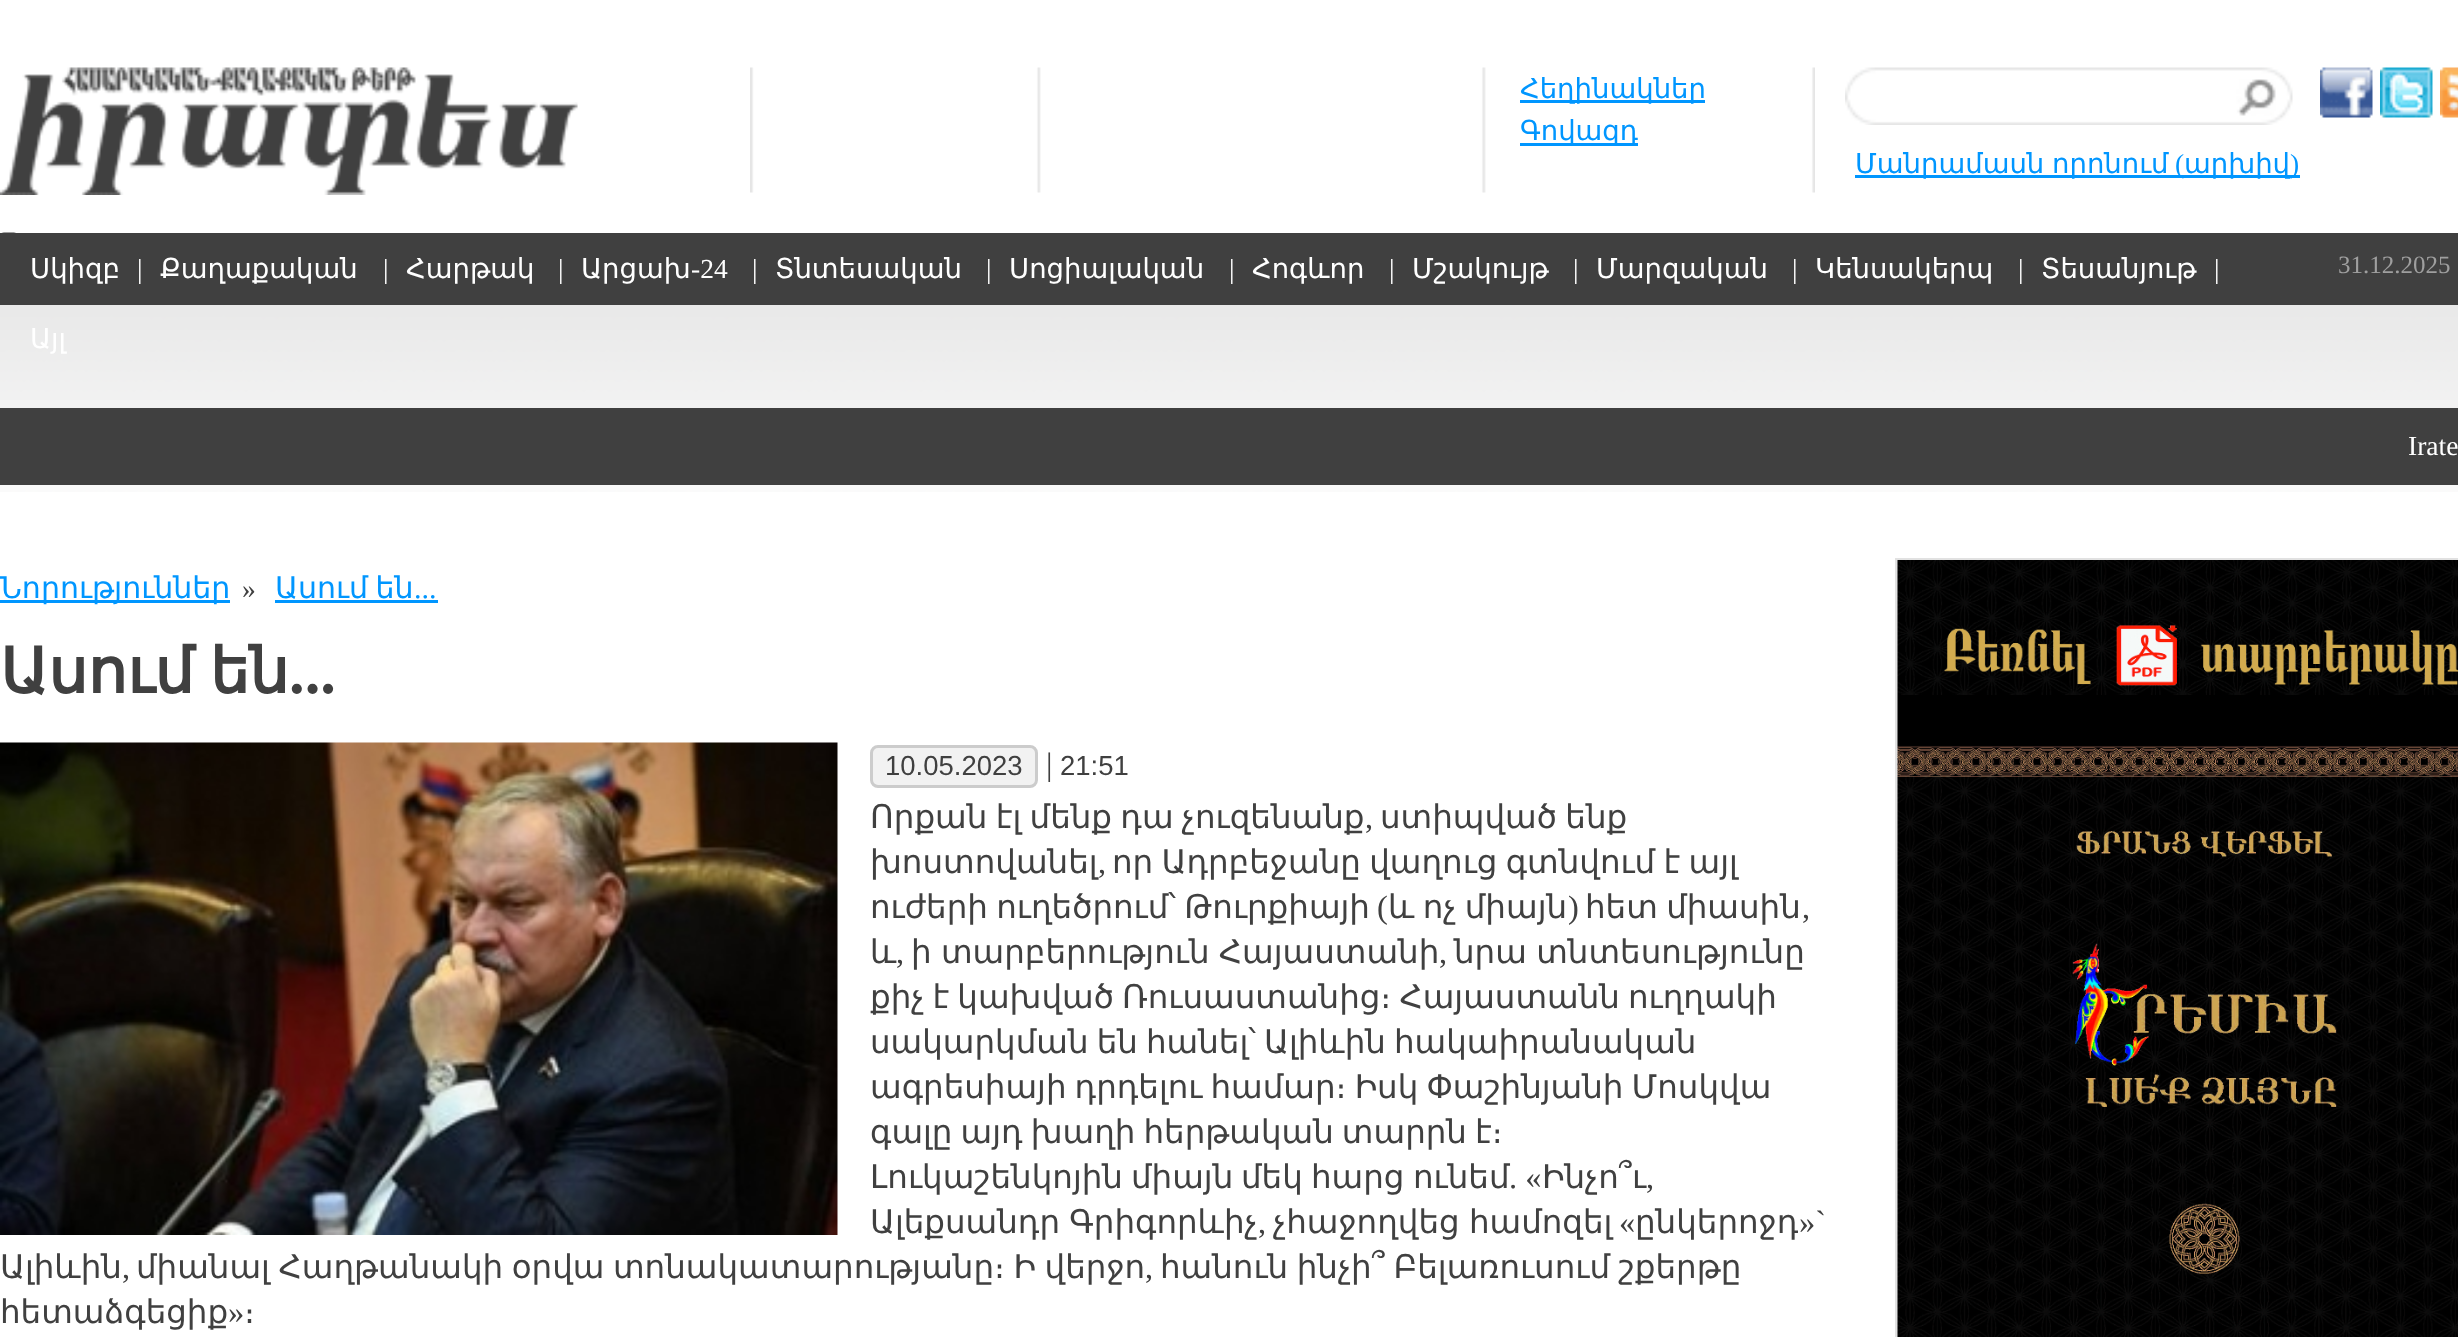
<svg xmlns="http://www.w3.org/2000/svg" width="2458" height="1337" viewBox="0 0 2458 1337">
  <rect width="100%" height="100%" fill="#fff"/>
  <image x="0" y="305" width="2458" height="187" href="img/1.png"/>
  <image x="0" y="67" width="578" height="128" href="img/2.png"/>
  <image x="750" y="67" width="1065" height="126" href="img/3.png"/>
  <path d="M1520 100h185v3H1520z" fill="#0096ff"/>
  <path d="M1520 143h118v3H1520z" fill="#0096ff"/>
  <image x="1845" y="67" width="448" height="58" href="img/4.png"/>
  <image x="2320" y="67" width="53" height="51" href="img/5.png"/>
  <image x="2380" y="67" width="53" height="51" href="img/6.png"/>
  <image x="2440" y="67" width="18" height="51" href="img/7.png"/>
  <path d="M1855 175h445v3H1855z" fill="#0096ff"/>
  <path d="M0 233h2458v72H0z" fill="#404040"/>
  <image x="1" y="232" width="15" height="1" href="img/8.png"/>
  <path d="M0 408h2458v77H0z" fill="#404040"/>
  <path d="M0 600h230v3H0z" fill="#0096ff"/>
  <path d="M275 600h163v3H275z" fill="#0096ff"/>
  <image x="0" y="742" width="838" height="493" href="img/9.png"/>
  <rect x="871.5" y="746.5" width="165" height="40" rx="6.5" fill="#f2f2f2" stroke="#ccc" stroke-width="3"/>
  <path d="M1896.5 559.5h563v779H1896.5z" fill="none" stroke="#e1e1e1" stroke-width="3"/>
  <image x="1897" y="560" width="561" height="135" href="img/10.png"/>
  <image x="1897" y="695" width="561" height="642" href="img/11.png"/>
  <g font-family="DejaVu Sans" font-size="27.5" fill="#0096ff">
    <text x="1520" y="98">Հեղինակներ</text>
    <text x="1520" y="140">Գովազդ</text>
    <text x="1855" y="173" word-spacing="-1">Մանրամասն որոնում</text>
  </g>
  <text x="2175" y="173" font-family="Liberation Serif" font-size="27.5" fill="#0096ff">(</text>
  <text x="2184" y="173" font-family="DejaVu Sans" font-size="27.5" fill="#0096ff">արխիվ</text>
  <text x="2290" y="173" font-family="Liberation Serif" font-size="27.5" fill="#0096ff">)</text>
  <text x="30" y="278" font-family="DejaVu Sans" font-size="27.5" fill="#fff">Սկիզբ</text>
  <text x="137" y="278" font-family="Liberation Serif" font-size="27.5" fill="#fff">|</text>
  <text x="160" y="278" font-family="DejaVu Sans" font-size="27.5" fill="#fff">Քաղաքական</text>
  <text x="383" y="278" font-family="Liberation Serif" font-size="27.5" fill="#fff">|</text>
  <text x="406" y="278" font-family="DejaVu Sans" font-size="27.5" fill="#fff">Հարթակ</text>
  <text x="558" y="278" font-family="Liberation Serif" font-size="27.5" fill="#fff">|</text>
  <text x="581" y="278" font-family="DejaVu Sans" font-size="27.5" fill="#fff">Արցախ</text>
  <g font-family="Liberation Serif" font-size="27.5" fill="#fff">
    <text x="691" y="278">-24</text>
    <text x="752" y="278">|</text>
  </g>
  <text x="775" y="278" font-family="DejaVu Sans" font-size="27.5" fill="#fff">Տնտեսական</text>
  <text x="986" y="278" font-family="Liberation Serif" font-size="27.5" fill="#fff">|</text>
  <text x="1009" y="278" font-family="DejaVu Sans" font-size="27.5" fill="#fff">Սոցիալական</text>
  <text x="1229" y="278" font-family="Liberation Serif" font-size="27.5" fill="#fff">|</text>
  <text x="1252" y="278" font-family="DejaVu Sans" font-size="27.5" fill="#fff">Հոգևոր</text>
  <text x="1389" y="278" font-family="Liberation Serif" font-size="27.5" fill="#fff">|</text>
  <text x="1412" y="278" font-family="DejaVu Sans" font-size="27.5" fill="#fff">Մշակույթ</text>
  <text x="1573" y="278" font-family="Liberation Serif" font-size="27.5" fill="#fff">|</text>
  <text x="1596" y="278" font-family="DejaVu Sans" font-size="27.5" fill="#fff">Մարզական</text>
  <text x="1792" y="278" font-family="Liberation Serif" font-size="27.5" fill="#fff">|</text>
  <text x="1815" y="278" font-family="DejaVu Sans" font-size="27.5" fill="#fff">Կենսակերպ</text>
  <text x="2018" y="278" font-family="Liberation Serif" font-size="27.5" fill="#fff">|</text>
  <text x="2041" y="278" font-family="DejaVu Sans" font-size="27.5" fill="#fff">Տեսանյութ</text>
  <text x="2214" y="278" font-family="Liberation Serif" font-size="27.5" fill="#fff">|</text>
  <text x="30" y="348" font-family="DejaVu Sans" font-size="27.5" fill="#fff">Այլ</text>
  <text x="2338" y="273" font-family="Liberation Serif" font-size="25" fill="#9f9f9f">31.12.2025</text>
  <text x="2408" y="455" font-family="Liberation Serif" font-size="27.5" fill="#fff">Irate</text>
  <text x="0" y="598" font-family="DejaVu Sans" font-size="30" fill="#0096ff">Նորություններ</text>
  <text x="242" y="598" font-family="Liberation Serif" font-size="27.5" fill="#404040">»</text>
  <text x="275" y="598" word-spacing="-2" font-family="DejaVu Sans" font-size="30" fill="#0096ff">Ասում են</text>
  <text x="414" y="598" font-family="Liberation Serif" font-size="30" fill="#0096ff">...</text>
  <text x="0" y="693" word-spacing="-4" font-family="DejaVu Sans" font-size="62.5" font-weight="bold" fill="#404040">Ասում են</text>
  <text x="289" y="693" font-family="Liberation Serif" font-size="62.5" font-weight="bold" fill="#404040">...</text>
  <text x="885" y="775" font-family="Liberation Sans" font-size="27.5" fill="#404040">10.05.2023</text>
  <text x="1046" y="775" font-family="Liberation Serif" font-size="32.5" fill="#404040">|</text>
  <text x="1060" y="775" font-family="Liberation Sans" font-size="27.5" fill="#404040">21:51</text>
  <text x="870" y="828" word-spacing="-2" font-family="DejaVu Sans" font-size="32.5" fill="#404040">Որքան էլ մենք դա չուզենանք</text>
  <text x="1365" y="828" font-family="Liberation Serif" font-size="32.5" fill="#404040">,</text>
  <g font-family="DejaVu Sans" font-size="32.5" fill="#404040">
    <text x="1380" y="828" word-spacing="-2">ստիպված ենք</text>
    <text x="870" y="873">խոստովանել</text>
  </g>
  <text x="1098" y="873" font-family="Liberation Serif" font-size="32.5" fill="#404040">,</text>
  <g font-family="DejaVu Sans" font-size="32.5" fill="#404040">
    <text x="1112" y="873" word-spacing="-2">որ Ադրբեջանը վաղուց գտնվում է այլ</text>
    <text x="870" y="918" word-spacing="-2">ուժերի ուղեծրում՝ Թուրքիայի</text>
  </g>
  <text x="1377" y="918" font-family="Liberation Serif" font-size="32.5" fill="#404040">(</text>
  <text x="1388" y="918" word-spacing="-2" font-family="DejaVu Sans" font-size="32.5" fill="#404040">և ոչ միայն</text>
  <text x="1568" y="918" font-family="Liberation Serif" font-size="32.5" fill="#404040">)</text>
  <text x="1585" y="918" word-spacing="-2" font-family="DejaVu Sans" font-size="32.5" fill="#404040">հետ միասին</text>
  <text x="1802" y="918" font-family="Liberation Serif" font-size="32.5" fill="#404040">,</text>
  <text x="870" y="963" font-family="DejaVu Sans" font-size="32.5" fill="#404040">և</text>
  <text x="896" y="963" font-family="Liberation Serif" font-size="32.5" fill="#404040">,</text>
  <text x="911" y="963" word-spacing="-1" font-family="DejaVu Sans" font-size="32.5" fill="#404040">ի տարբերություն Հայաստանի</text>
  <text x="1439" y="963" font-family="Liberation Serif" font-size="32.5" fill="#404040">,</text>
  <g font-family="DejaVu Sans" font-size="32.5" fill="#404040">
    <text x="1454" y="963" word-spacing="-1">նրա տնտեսությունը</text>
    <text x="870" y="1008" word-spacing="-2.25">քիչ է կախված Ռուսաստանից։ Հայաստանն ուղղակի</text>
    <text x="870" y="1053" word-spacing="-2.25">սակարկման են հանել՝ Ալիևին հակաիրանական</text>
    <text x="870" y="1098" word-spacing="-2.25">ագրեսիայի դրդելու համար։ Իսկ Փաշինյանի Մոսկվա</text>
    <text x="870" y="1143" word-spacing="-2.25">գալը այդ խաղի հերթական տարրն է։</text>
    <text x="870" y="1188">Լուկաշենկոյին</text>
    <text x="1131" y="1188">միայն</text>
    <text x="1241" y="1188">մեկ</text>
    <text x="1311" y="1188">հարց</text>
    <text x="1413" y="1188">ունեմ</text>
  </g>
  <text x="1509" y="1188" font-family="Liberation Serif" font-size="32.5" fill="#404040">. «</text>
  <text x="1542" y="1188" font-family="DejaVu Sans" font-size="32.5" fill="#404040">Ինչո՞ւ</text>
  <text x="1646" y="1188" font-family="Liberation Serif" font-size="32.5" fill="#404040">,</text>
  <g font-family="DejaVu Sans" font-size="32.5" fill="#404040">
    <text x="870" y="1233" word-spacing="-1">Ալեքսանդր Գրիգորևիչ</text>
    <text x="1273" y="1233" word-spacing="-1">չհաջողվեց համոզել</text>
  </g>
  <text x="1619" y="1233" font-family="Liberation Serif" font-size="32.5" fill="#404040">«</text>
  <text x="1635" y="1233" font-family="DejaVu Sans" font-size="32.5" fill="#404040">ընկերոջդ</text>
  <g font-family="Liberation Serif" font-size="32.5" fill="#404040">
    <text x="1799" y="1233">»`</text>
    <text x="1258" y="1233">,</text>
  </g>
  <text x="0" y="1278" font-family="DejaVu Sans" font-size="32.5" fill="#404040">Ալիևին</text>
  <text x="122" y="1278" font-family="Liberation Serif" font-size="32.5" fill="#404040">,</text>
  <text x="136" y="1278" word-spacing="-1.75" font-family="DejaVu Sans" font-size="32.5" fill="#404040">միանալ Հաղթանակի օրվա տոնակատարությանը։ Ի վերջո</text>
  <text x="1145" y="1278" font-family="Liberation Serif" font-size="32.5" fill="#404040">,</text>
  <g font-family="DejaVu Sans" font-size="32.5" fill="#404040">
    <text x="1160" y="1278" word-spacing="-1.75">հանուն ինչի՞ Բելառուսում շքերթը</text>
    <text x="0" y="1323">հետաձգեցիք</text>
  </g>
  <text x="228" y="1323" font-family="Liberation Serif" font-size="32.5" fill="#404040">»</text>
  <text x="244" y="1323" font-family="DejaVu Sans" font-size="32.5" fill="#404040">։</text>
</svg>
